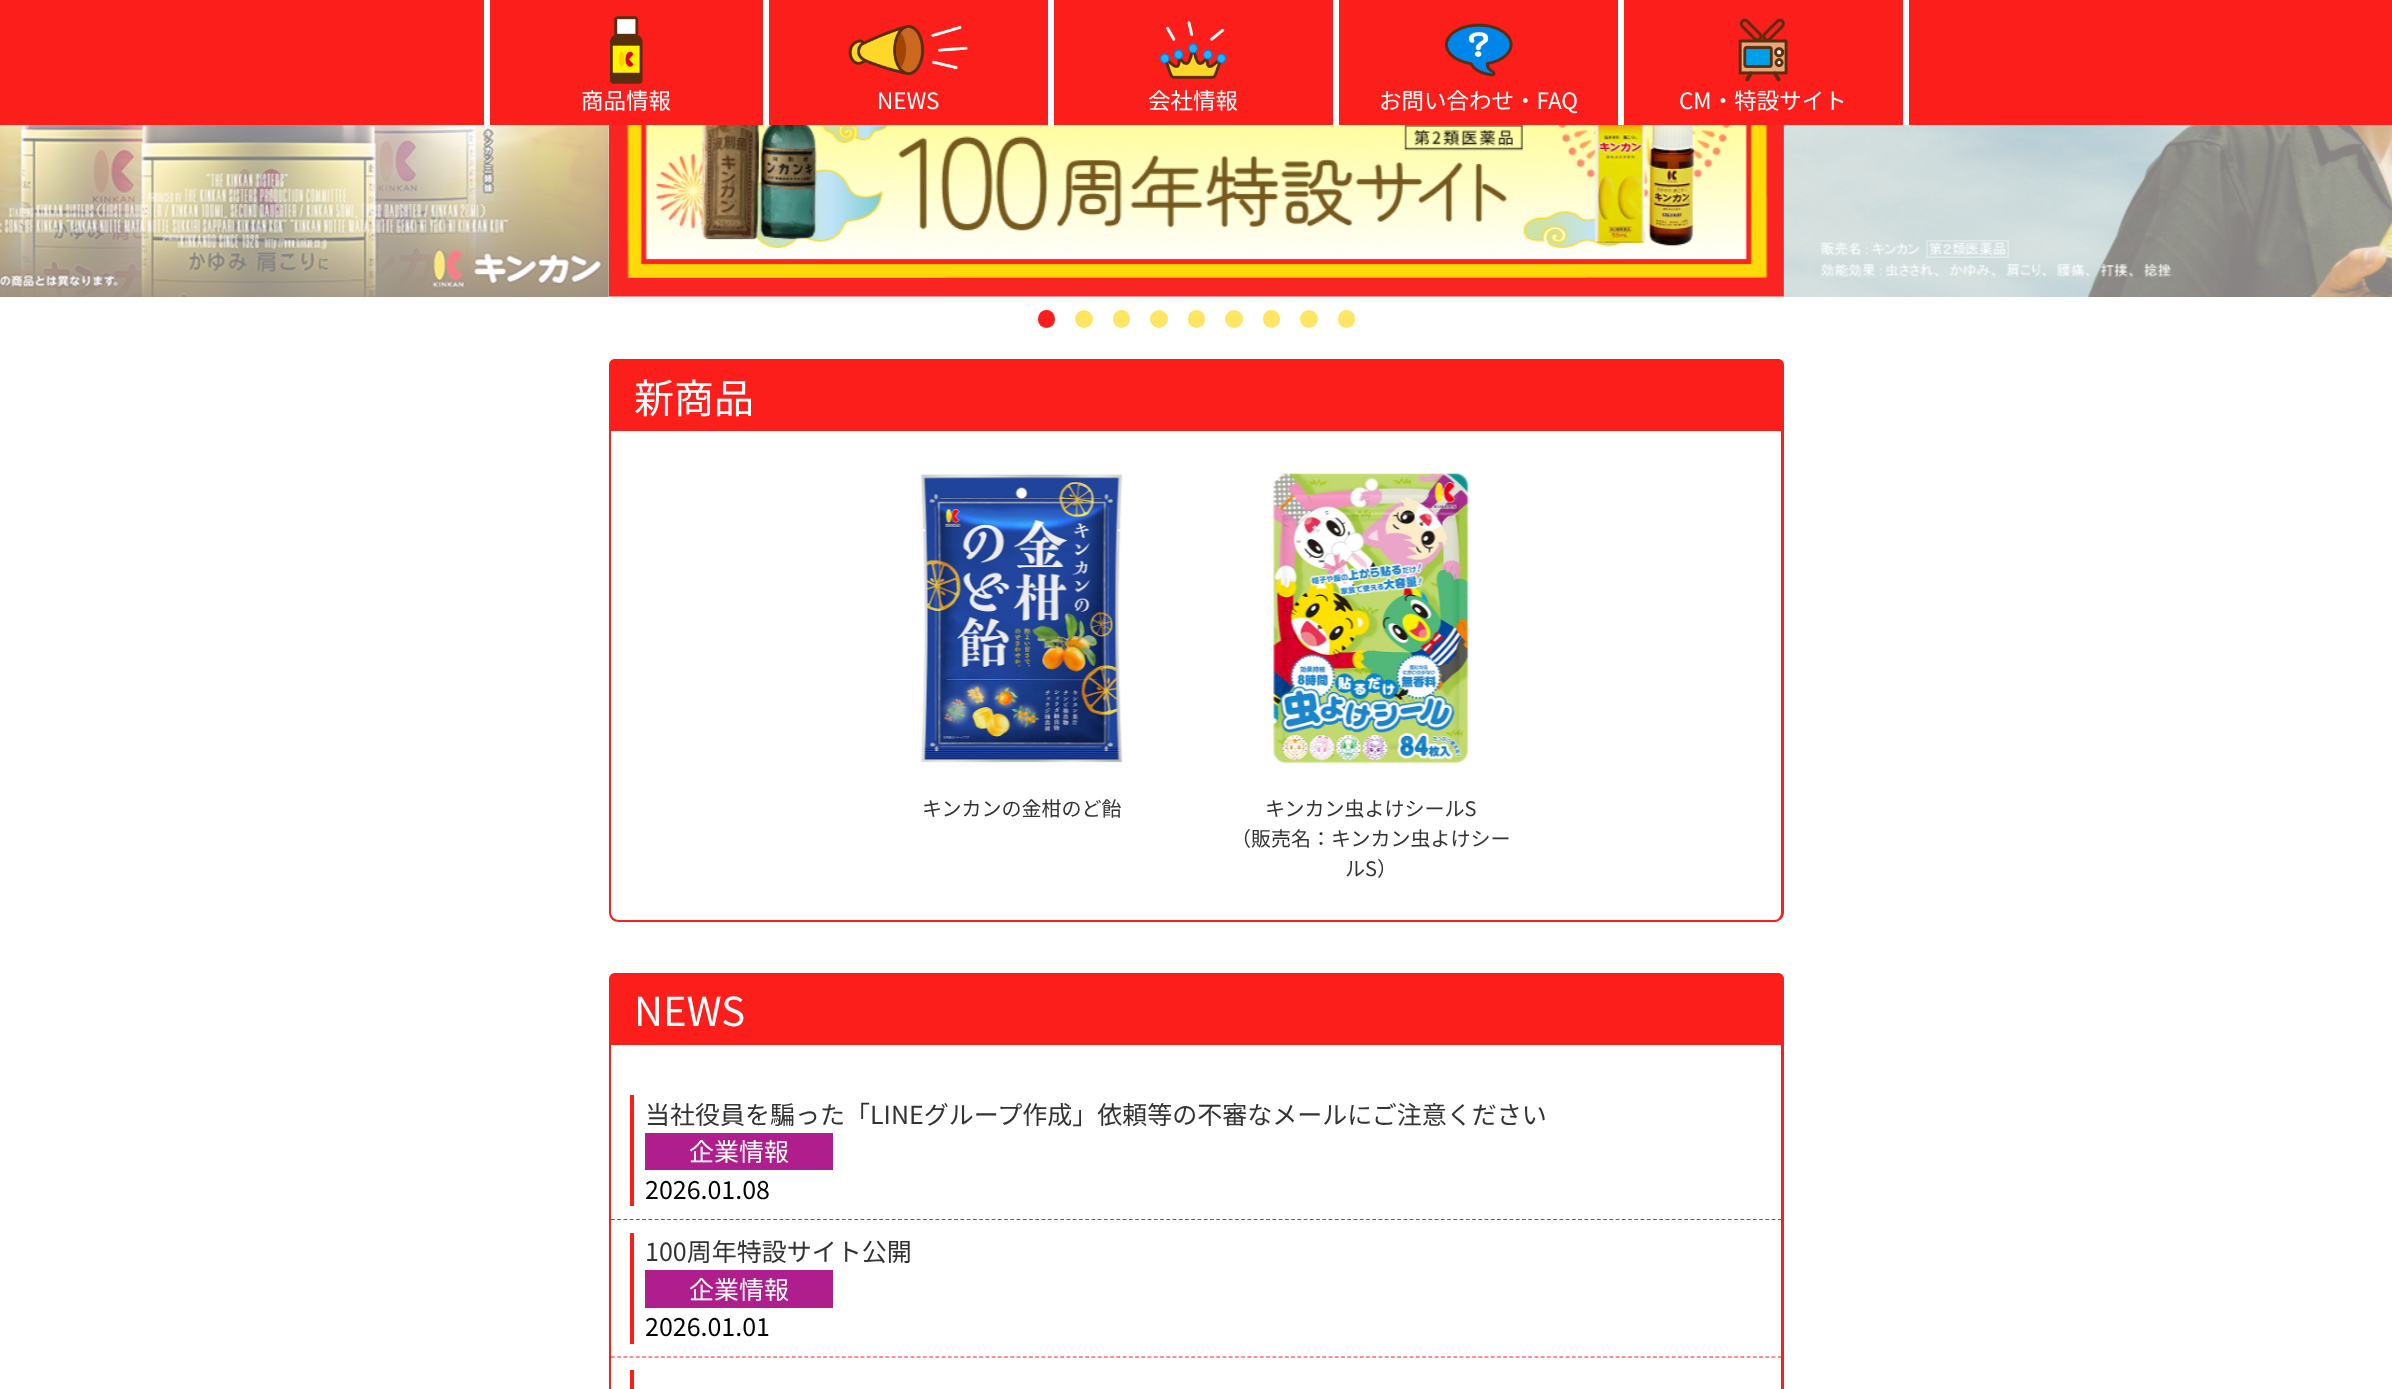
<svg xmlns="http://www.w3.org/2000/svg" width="2392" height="1389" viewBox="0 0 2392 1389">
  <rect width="100%" height="100%" fill="#fff"/>
  <path d="M0 0h2392v125H0z" fill="#fb1e1b"/>
  <path d="M763 0h6v125H763z" fill="#fff"/>
  <path d="M484 0h6v125H484z" fill="#fff"/>
  <image x="610" y="16" width="33" height="68" href="img/1.png"/>
  <path d="M1048 0h6v125H1048z" fill="#fff"/>
  <image x="848" y="25" width="120" height="50" href="img/2.png"/>
  <path d="M1333 0h6v125H1333z" fill="#fff"/>
  <image x="1160" y="21" width="67" height="58" href="img/3.png"/>
  <path d="M1618 0h6v125H1618z" fill="#fff"/>
  <image x="1445" y="23" width="68" height="54" href="img/4.png"/>
  <path d="M1903 0h6v125H1903z" fill="#fff"/>
  <image x="1738" y="18" width="50" height="64" href="img/5.png"/>
  <image x="0" y="125" width="609" height="172" href="img/6.png"/>
  <image x="609" y="125" width="1175" height="172" href="img/7.png"/>
  <image x="1783" y="125" width="609" height="172" href="img/8.png"/>
  <rect x="1038" y="310" width="17" height="18" rx="8.5" fill="#fb1e1b"/>
  <circle cx="1084" cy="319" r="9" fill="#ffe564"/>
  <rect x="1113" y="310" width="17" height="18" rx="8.5" fill="#ffe564"/>
  <circle cx="1159" cy="319" r="9" fill="#ffe564"/>
  <rect x="1188" y="310" width="17" height="18" rx="8.5" fill="#ffe564"/>
  <circle cx="1234" cy="319" r="9" fill="#ffe564"/>
  <rect x="1263" y="310" width="17" height="18" rx="8.5" fill="#ffe564"/>
  <circle cx="1309" cy="319" r="9" fill="#ffe564"/>
  <rect x="1338" y="310" width="17" height="18" rx="8.5" fill="#ffe564"/>
  <path d="M615 359H1778C1781.5 359 1784 361.5 1784 365V431H609V365C609 361.5 611.5 359 615 359Z" fill="#fb1e1b"/>
  <path d="M609 431H1784V912C1784 918 1779 922 1774 922H619C613 922 609 918 609 912ZM611 431H1781V912C1781 917 1778 920 1774 920H619C615 920 611 917 611 912Z" fill="#fb1e1b" fill-rule="evenodd"/>
  <image x="920" y="474" width="203" height="289" href="img/9.png"/>
  <image x="1273" y="473" width="196" height="291" href="img/10.png"/>
  <path d="M615 973H1778C1781.5 973 1784 975.5 1784 979V1045H609V979C609 975.5 611.5 973 615 973Z" fill="#fb1e1b"/>
  <path d="M609 1045H1784V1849C1784 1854 1779 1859 1774 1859H619C613 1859 609 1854 609 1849ZM611 1045H1781V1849C1781 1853 1778 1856 1774 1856H619C615 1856 611 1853 611 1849Z" fill="#fb1e1b" fill-rule="evenodd"/>
  <path d="M611 1219.5H1781" fill="none" stroke="#fb1e1b" stroke-width="1.2" stroke-dasharray="3.75 2.49"/>
  <path d="M630 1095h4v111H630z" fill="#fb1e1b"/>
  <path d="M645 1133h188v37H645z" fill="#b01e8d"/>
  <path d="M611 1357H1781" fill="none" stroke="#fb1e1b" stroke-width="1.2" stroke-dasharray="3.75 2.49"/>
  <path d="M630 1233h4v111H630z" fill="#fb1e1b"/>
  <path d="M645 1270h188v38H645z" fill="#b01e8d"/>
  <path d="M630 1370h4v19H630z" fill="#fb1e1b"/>
  <g font-family="Noto Sans JP" font-size="22.5" fill="#fff">
    <text x="581" y="109">商品情報</text>
    <text x="877" y="109">NEWS</text>
    <text x="1148" y="109">会社情報</text>
    <text x="1379" y="109">お問い合わせ・FAQ</text>
    <text x="1679" y="109">CM・特設サイト</text>
  </g>
  <text x="634" y="413" font-family="Noto Sans JP" font-size="40" fill="#fff">新商品</text>
  <g font-family="Noto Sans JP" font-size="20" fill="#333">
    <text x="922" y="816">キンカンの金柑のど飴</text>
    <text x="1265" y="816">キンカン虫よけシールS</text>
    <text x="1231" y="846">（販売名：キンカン虫よけシー</text>
    <text x="1345" y="876">ルS）</text>
  </g>
  <text x="634" y="1026" font-family="Noto Sans JP" font-size="40" fill="#fff">NEWS</text>
  <text x="645" y="1124" font-family="Noto Sans JP" font-size="25" fill="#333">当社役員を騙った「LINEグループ作成」依頼等の不審なメールにご注意ください</text>
  <text x="689" y="1161" font-family="Noto Sans JP" font-size="25" fill="#fff">企業情報</text>
  <text x="645" y="1199" font-family="Noto Sans JP" font-size="25" fill="#000">2026.01.08</text>
  <text x="645" y="1261" font-family="Noto Sans JP" font-size="25" fill="#333">100周年特設サイト公開</text>
  <text x="689" y="1299" font-family="Noto Sans JP" font-size="25" fill="#fff">企業情報</text>
  <text x="645" y="1336" font-family="Noto Sans JP" font-size="25" fill="#000">2026.01.01</text>
</svg>
